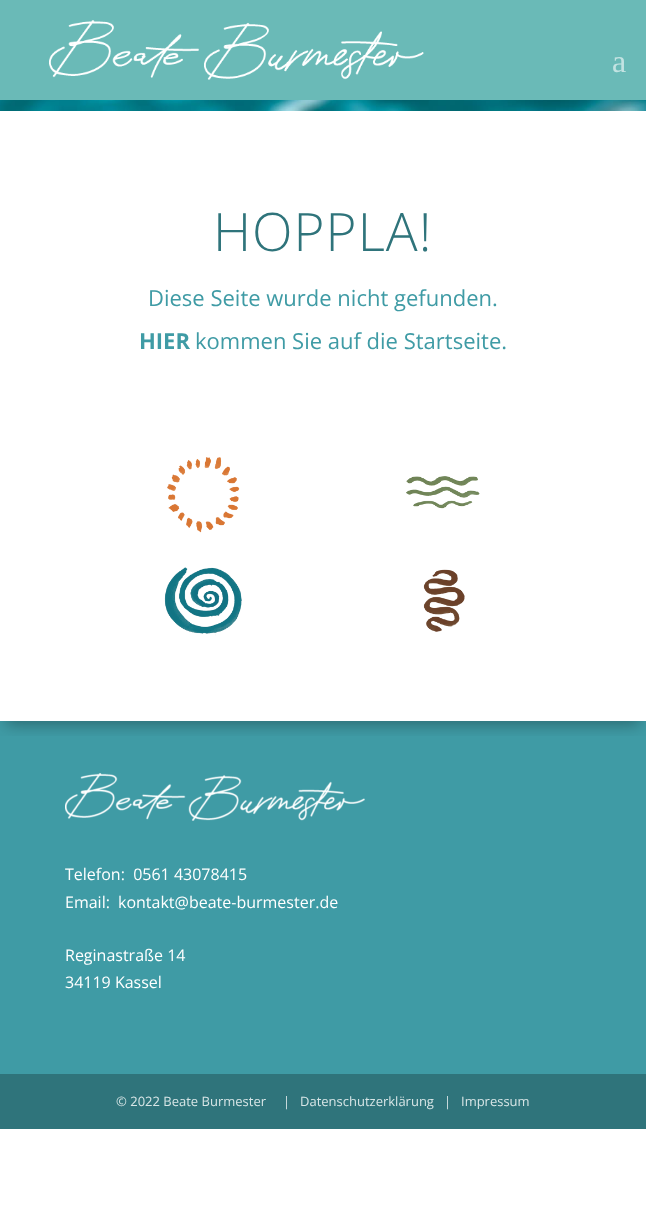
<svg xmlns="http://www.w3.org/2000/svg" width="646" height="1217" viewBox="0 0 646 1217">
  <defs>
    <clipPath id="clip1"><path d="M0 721h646v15H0z"/></clipPath>
  </defs>
  <rect width="100%" height="100%" fill="#fff"/>
  <path d="M0 0h646v100H0z" fill="#6abab7"/>
  <image x="49" y="20" width="375" height="60" href="img/1.png"/>
  <image x="0" y="100" width="646" height="11" href="img/2.png"/>
  <path d="M0 721h646v353H0z" fill="#3f9ba5"/>
  <g clip-path="url(#clip1)">
    <path d="M6 127h634v598H6z" fill="#0000004d" filter="blur(7.5px)"/>
  </g>
  <image x="167" y="457" width="73" height="76" href="img/3.png"/>
  <image x="406" y="476" width="74" height="33" href="img/4.png"/>
  <image x="164" y="567" width="78" height="69" href="img/5.png"/>
  <image x="423" y="569" width="42" height="63" href="img/6.png"/>
  <image x="65" y="773" width="300" height="48" href="img/7.png"/>
  <path d="M0 1074h646v55H0z" fill="#2f747b"/>
  <text x="612" y="72" font-family="Liberation Serif" font-size="32" fill="#c3e3e2">a</text>
  <text x="213" y="251" font-family="Open Sans" font-size="53" font-weight="300" letter-spacing="1" fill="#2f747b">HOPPLA!</text>
  <text x="148" y="306" font-family="Open Sans" font-size="22" fill="#3f9ba5">Diese Seite wurde nicht gefunden.</text>
  <text x="139" y="349" font-family="Open Sans" font-size="22" font-weight="bold" fill="#3f9ba5">HIER</text>
  <text x="195" y="349" font-family="Open Sans" font-size="22" fill="#3f9ba5">kommen Sie auf die Startseite.</text>
  <g font-family="Open Sans" font-size="16" fill="#fff">
    <text x="65" y="880" xml:space="preserve">Telefon:  0561 43078415</text>
    <text x="65" y="908">Email:</text>
    <text x="118" y="908">kontakt@beate-burmester.de</text>
    <text x="65" y="961">Reginastraße 14</text>
    <text x="65" y="988">34119 Kassel</text>
  </g>
  <g font-family="Open Sans" font-size="13" fill="#d7e5e6">
    <text x="116" y="1106">© 2022 Beate Burmester</text>
    <text x="283" y="1106">|</text>
    <text x="300" y="1106">Datenschutzerklärung</text>
    <text x="444" y="1106">|</text>
    <text x="461" y="1106">Impressum</text>
  </g>
</svg>
